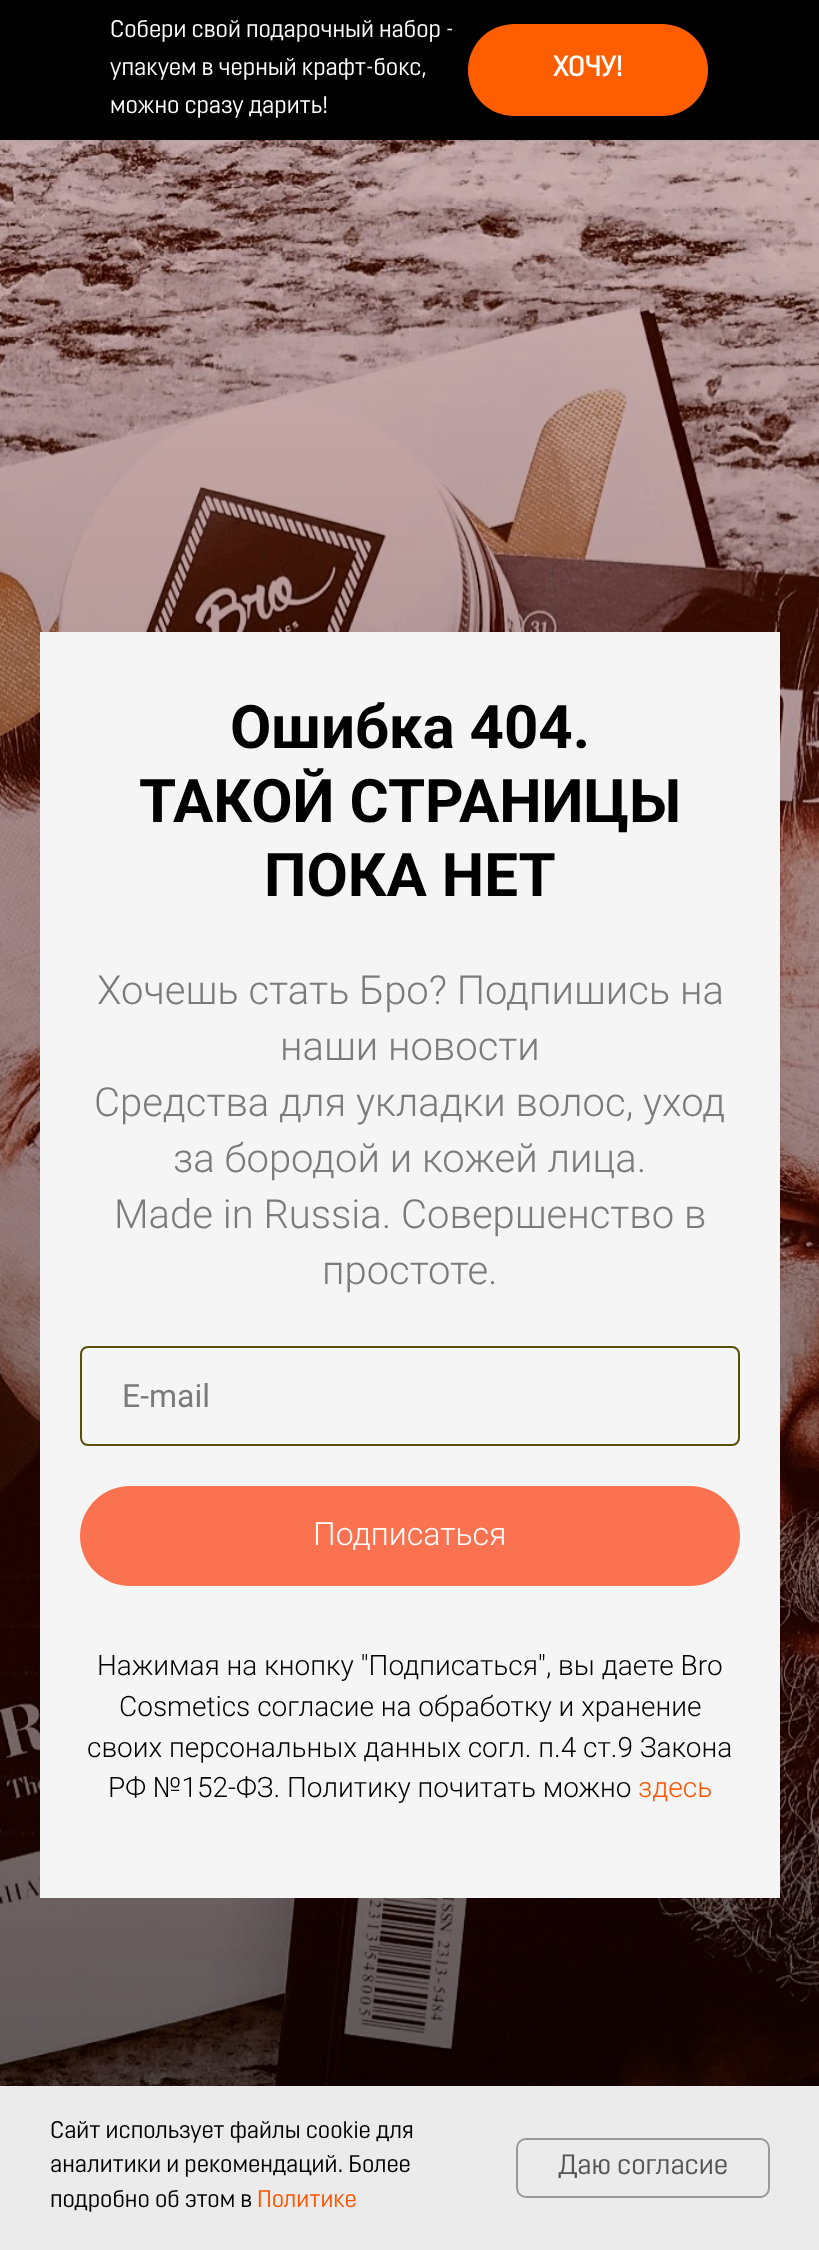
<svg xmlns="http://www.w3.org/2000/svg" width="819" height="2250" viewBox="0 0 819 2250">
  <rect width="100%" height="100%" fill="#000"/>
  <rect x="468" y="24" width="240" height="92" rx="46" fill="#ff5e00"/>
  <image x="0" y="140" width="819" height="1946" href="img/1.png"/>
  <path d="M40 632h740v1266H40z" fill="#f5f5f5"/>
  <rect x="81" y="1347" width="658" height="98" rx="7" fill="none" stroke="#595008" stroke-width="2"/>
  <rect x="80" y="1486" width="660" height="100" rx="50" fill="#fa7250"/>
  <path d="M0 2086h819v164H0z" fill="#ebebeb"/>
  <rect x="517" y="2139" width="252" height="58" rx="9" fill="none" stroke="#999" stroke-width="2"/>
  <g font-family="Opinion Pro" font-size="24" fill="#fff">
    <text x="110" y="37">Собери свой подарочный набор -</text>
    <text x="110" y="75">упакуем в черный крафт-бокс,</text>
    <text x="110" y="113">можно сразу дарить!</text>
  </g>
  <text x="553" y="76" font-family="Opinion Pro" font-size="28" font-weight="bold" fill="#fff">ХОЧУ!</text>
  <g font-family="Roboto" font-size="60" font-weight="bold" fill="#000">
    <text x="230" y="748">Ошибка 404.</text>
    <text x="139" y="822">ТАКОЙ СТРАНИЦЫ</text>
    <text x="264" y="896">ПОКА НЕТ</text>
  </g>
  <g font-family="Roboto" font-size="40" font-weight="300" fill="#7b7b7b">
    <text x="97" y="1004">Хочешь стать Бро? Подпишись на</text>
    <text x="280" y="1060">наши новости</text>
    <text x="94" y="1116">Средства для укладки волос, уход</text>
    <text x="173" y="1172">за бородой и кожей лица.</text>
    <text x="114" y="1228">Made in Russia. Совершенство в</text>
    <text x="322" y="1284">простоте.</text>
  </g>
  <text x="122" y="1407" font-family="Roboto" font-size="32" fill="#7b7b7b">E-mail</text>
  <text x="313" y="1545" font-family="Roboto" font-size="32" font-weight="300" fill="#fff">Подписаться</text>
  <g font-family="Roboto" font-size="28" font-weight="300" fill="#000">
    <text x="97" y="1675">Нажимая на кнопку "Подписаться", вы даете Bro</text>
    <text x="119" y="1716">Cosmetics согласие на обработку и хранение</text>
    <text x="87" y="1757">своих персональных данных согл. п.4 ст.9 Закона</text>
    <text x="108" y="1797">РФ №152-ФЗ. Политику почитать можно</text>
  </g>
  <text x="638" y="1797" font-family="Roboto" font-size="28" font-weight="300" fill="#f50">здесь</text>
  <g font-family="Opinion Pro" font-size="24" fill="#000">
    <text x="50" y="2138">Сайт использует файлы cookie для</text>
    <text x="50" y="2172">аналитики и рекомендаций. Более</text>
    <text x="50" y="2207">подробно об этом в</text>
  </g>
  <text x="257" y="2207" font-family="Opinion Pro" font-size="24" fill="#f50">Политике</text>
  <text x="558" y="2174" font-family="'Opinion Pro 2'" font-size="28" fill="#555">Даю согласие</text>
</svg>
